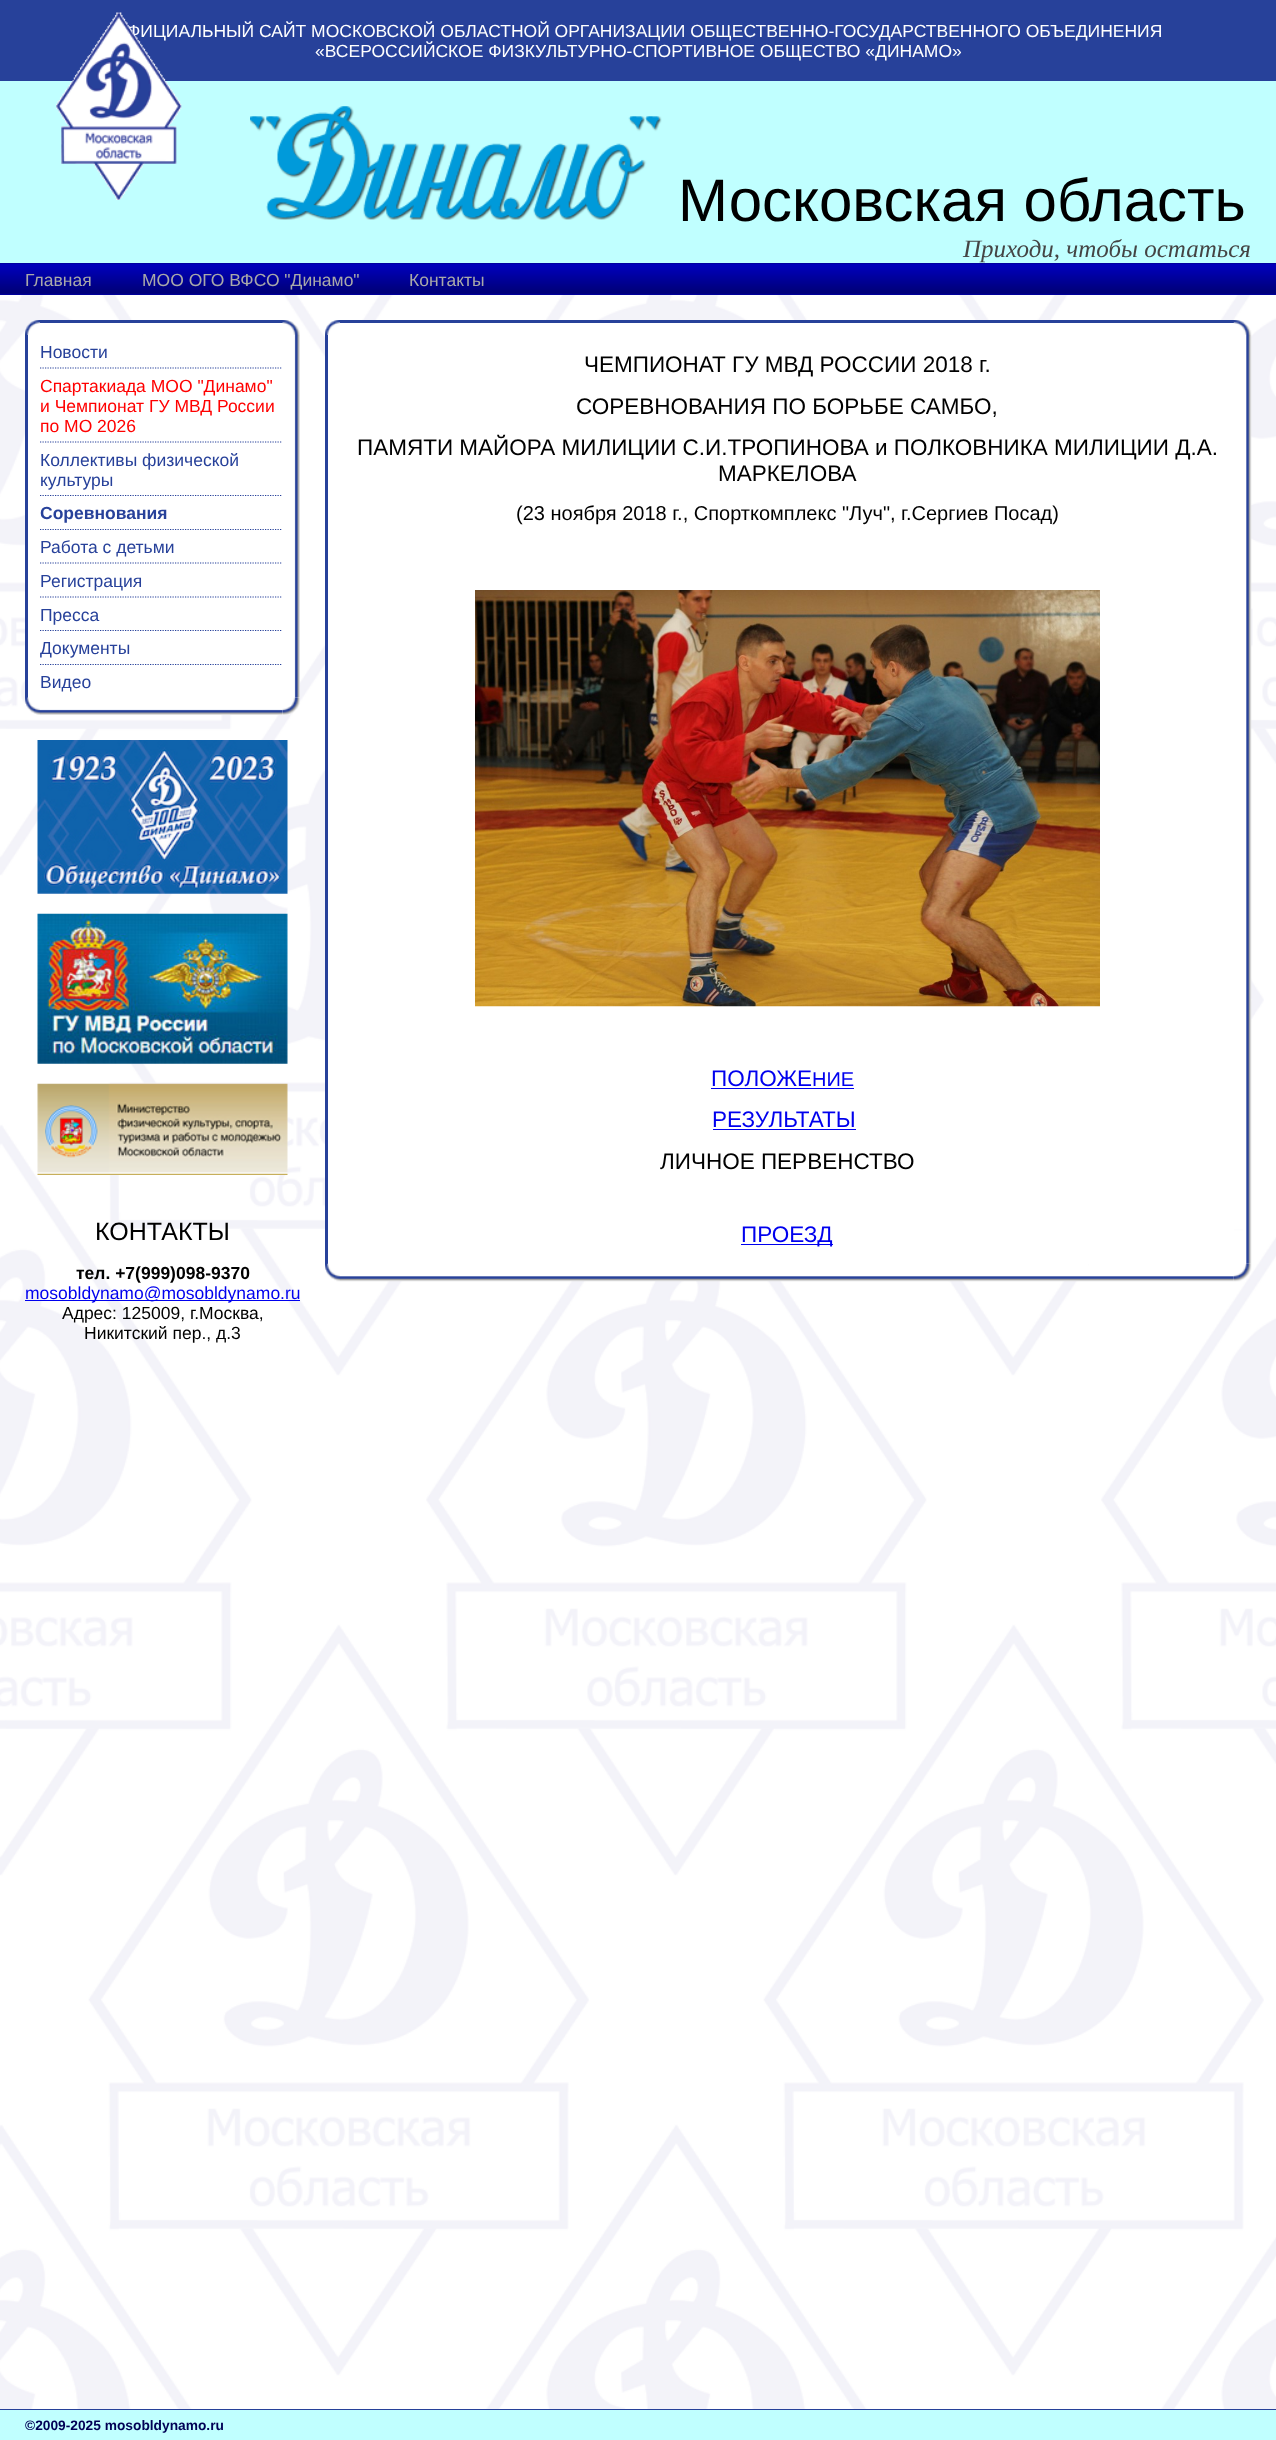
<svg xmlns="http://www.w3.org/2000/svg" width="1276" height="2440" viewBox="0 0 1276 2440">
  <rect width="100%" height="100%" fill="#fff"/>
  <image x="0" y="295" width="1276" height="2114" href="img/1.png"/>
  <path d="M0 0h1276v81H0z" fill="#27419a"/>
  <path d="M0 81h1276v182H0z" fill="#c0ffff"/>
  <image x="250" y="106" width="412" height="114" href="img/3.png"/>
  <path d="M0 263h1276v32H0z" fill="#009"/>
  <image x="0" y="263" width="1276" height="31" href="img/4.png"/>
  <image x="25" y="320" width="15" height="15" href="img/5.png"/>
  <path d="M40 323h102v12H40z" fill="#fff"/>
  <path d="M40 320h243v3H40z" fill="#27419a"/>
  <image x="282" y="320" width="18" height="15" href="img/6.png"/>
  <path d="M28 391h12v294H28z" fill="#fff"/>
  <path d="M25 335h3v363H25z" fill="#27419a"/>
  <path d="M40 335h212v363H40z" fill="#fff"/>
  <path d="M40 368H282.5" fill="none" stroke="#27419a" stroke-width="1.2" stroke-dasharray="1.25 1.25"/>
  <path d="M40 442H282.5" fill="none" stroke="#27419a" stroke-width="1.2" stroke-dasharray="1.25 1.25"/>
  <path d="M40 495.5H282.5" fill="none" stroke="#27419a" stroke-width="1.2" stroke-dasharray="1.25 1.25"/>
  <path d="M40 529.5H282.5" fill="none" stroke="#27419a" stroke-width="1.2" stroke-dasharray="1.25 1.25"/>
  <path d="M40 563H282.5" fill="none" stroke="#27419a" stroke-width="1.2" stroke-dasharray="1.25 1.25"/>
  <path d="M40 597H282.5" fill="none" stroke="#27419a" stroke-width="1.2" stroke-dasharray="1.25 1.25"/>
  <path d="M40 630.5H282.5" fill="none" stroke="#27419a" stroke-width="1.2" stroke-dasharray="1.25 1.25"/>
  <path d="M40 664.5H282.5" fill="none" stroke="#27419a" stroke-width="1.2" stroke-dasharray="1.25 1.25"/>
  <path d="M289 682h11v16H289z" fill="#fff"/>
  <image x="294" y="335" width="6" height="363" href="img/7.png"/>
  <image x="25" y="697" width="15" height="18" href="img/8.png"/>
  <path d="M40 698h243v17H40z" fill="#fff"/>
  <image x="40" y="709" width="243" height="6" href="img/9.png"/>
  <image x="282" y="697" width="18" height="18" href="img/10.png"/>
  <image x="37" y="740" width="251" height="154" href="img/11.png"/>
  <image x="37" y="913" width="251" height="151" href="img/12.png"/>
  <image x="37" y="1083" width="251" height="92" href="img/13.png"/>
  <path d="M25 1300h275v1H25z" fill="#00e"/>
  <image x="325" y="320" width="15" height="15" href="img/14.png"/>
  <path d="M352 323h880v12H352z" fill="#fff"/>
  <path d="M340 320h894v3H340z" fill="#27419a"/>
  <image x="1233" y="320" width="19" height="15" href="img/15.png"/>
  <path d="M328 342h12v887H328z" fill="#fff"/>
  <path d="M325 335h3v929H325z" fill="#27419a"/>
  <path d="M340 335h894v929H340z" fill="#fff"/>
  <image x="475" y="590" width="625" height="417" href="img/16.png"/>
  <path d="M711 1088h143v1H711z" fill="#00e"/>
  <path d="M713 1129h143v1H713z" fill="#00e"/>
  <path d="M741 1244h92v1H741z" fill="#00e"/>
  <path d="M1234 336h17v893H1234z" fill="#fff"/>
  <image x="1246" y="335" width="6" height="929" href="img/17.png"/>
  <image x="325" y="1263" width="15" height="19" href="img/18.png"/>
  <path d="M389 1264h699v17H389z" fill="#fff"/>
  <image x="340" y="1276" width="894" height="6" href="img/19.png"/>
  <image x="1233" y="1263" width="19" height="19" href="img/20.png"/>
  <path d="M0 2410h1276v30H0z" fill="#c0ffff"/>
  <path d="M0 2409h1276v1H0z" fill="#27419a"/>
  <g font-family="Liberation Sans" font-size="17.5" fill="#fff">
    <text x="127" y="37">ФИЦИАЛЬНЫЙ САЙТ МОСКОВСКОЙ ОБЛАСТНОЙ ОРГАНИЗАЦИИ ОБЩЕСТВЕННО-ГОСУДАРСТВЕННОГО ОБЪЕДИНЕНИЯ</text>
    <text x="315" y="57">«ВСЕРОССИЙСКОЕ ФИЗКУЛЬТУРНО-СПОРТИВНОЕ ОБЩЕСТВО «ДИНАМО»</text>
  </g>
  <image x="56" y="12" width="126" height="188" href="img/2.png"/>
  <text x="678" y="221" font-family="Liberation Sans" font-size="60" fill="#000">Московская область</text>
  <text x="963" y="257" font-family="Liberation Serif" font-size="25" font-style="italic" fill="#444">Приходи, чтобы остаться</text>
  <g font-family="Liberation Sans" font-size="17.5" fill="#a9a9a9">
    <text x="25" y="286">Главная</text>
    <text x="142" y="286">МОО ОГО ВФСО "Динамо"</text>
    <text x="409" y="286">Контакты</text>
  </g>
  <text x="40" y="358" font-family="Liberation Sans" font-size="17.5" fill="#27419a">Новости</text>
  <g font-family="Liberation Sans" font-size="17.5" fill="#f00">
    <text x="40" y="392">Спартакиада МОО "Динамо"</text>
    <text x="40" y="412">и Чемпионат ГУ МВД России</text>
    <text x="40" y="432">по МО 2026</text>
  </g>
  <g font-family="Liberation Sans" font-size="17.5" fill="#27419a">
    <text x="40" y="466">Коллективы физической</text>
    <text x="40" y="486">культуры</text>
  </g>
  <text x="40" y="519" font-family="Liberation Sans" font-size="17.5" font-weight="bold" fill="#27419a">Соревнования</text>
  <g font-family="Liberation Sans" font-size="17.5" fill="#27419a">
    <text x="40" y="553">Работа с детьми</text>
    <text x="40" y="587">Регистрация</text>
    <text x="40" y="621">Пресса</text>
    <text x="40" y="654">Документы</text>
    <text x="40" y="688">Видео</text>
  </g>
  <text x="95" y="1240" font-family="Liberation Sans" font-size="25" fill="#000">КОНТАКТЫ</text>
  <text x="76" y="1279" font-family="Liberation Sans" font-size="17.5" font-weight="bold" fill="#000">тел. +7(999)098-9370</text>
  <text x="25" y="1299" font-family="Liberation Sans" font-size="17.5" fill="#00e">mosobldynamo@mosobldynamo.ru</text>
  <g font-family="Liberation Sans" font-size="17.5" fill="#000">
    <text x="62" y="1319">Адрес: 125009, г.Москва,</text>
    <text x="84" y="1339">Никитский пер., д.3</text>
  </g>
  <g font-family="Liberation Sans" font-size="22.5" fill="#000">
    <text x="584" y="372">ЧЕМПИОНАТ ГУ МВД РОССИИ 2018 г.</text>
    <text x="576" y="414">СОРЕВНОВАНИЯ ПО БОРЬБЕ САМБО,</text>
    <text x="357" y="455">ПАМЯТИ МАЙОРА МИЛИЦИИ С.И.ТРОПИНОВА и ПОЛКОВНИКА МИЛИЦИИ Д.А.</text>
    <text x="718" y="481">МАРКЕЛОВА</text>
  </g>
  <text x="516" y="520" font-family="Liberation Sans" font-size="20" fill="#000">(23 ноября 2018 г., Спорткомплекс "Луч", г.Сергиев Посад)</text>
  <text x="711" y="1086" font-family="Liberation Sans" font-size="22.5" fill="#00e">ПОЛОЖЕ</text>
  <text x="812" y="1086" font-family="Liberation Sans" font-size="20" fill="#00e">НИЕ</text>
  <text x="712" y="1127" font-family="Liberation Sans" font-size="22.5" fill="#00e">РЕЗУЛЬТАТЫ</text>
  <text x="660" y="1169" font-family="Liberation Sans" font-size="22.5" fill="#000">ЛИЧНОЕ ПЕРВЕНСТВО</text>
  <text x="741" y="1242" font-family="Liberation Sans" font-size="22.5" fill="#00e">ПРОЕЗД</text>
  <text x="25" y="2430" font-family="Liberation Sans" font-size="13.75" font-weight="bold" fill="#005">©2009-2025 mosobldynamo.ru</text>
</svg>
